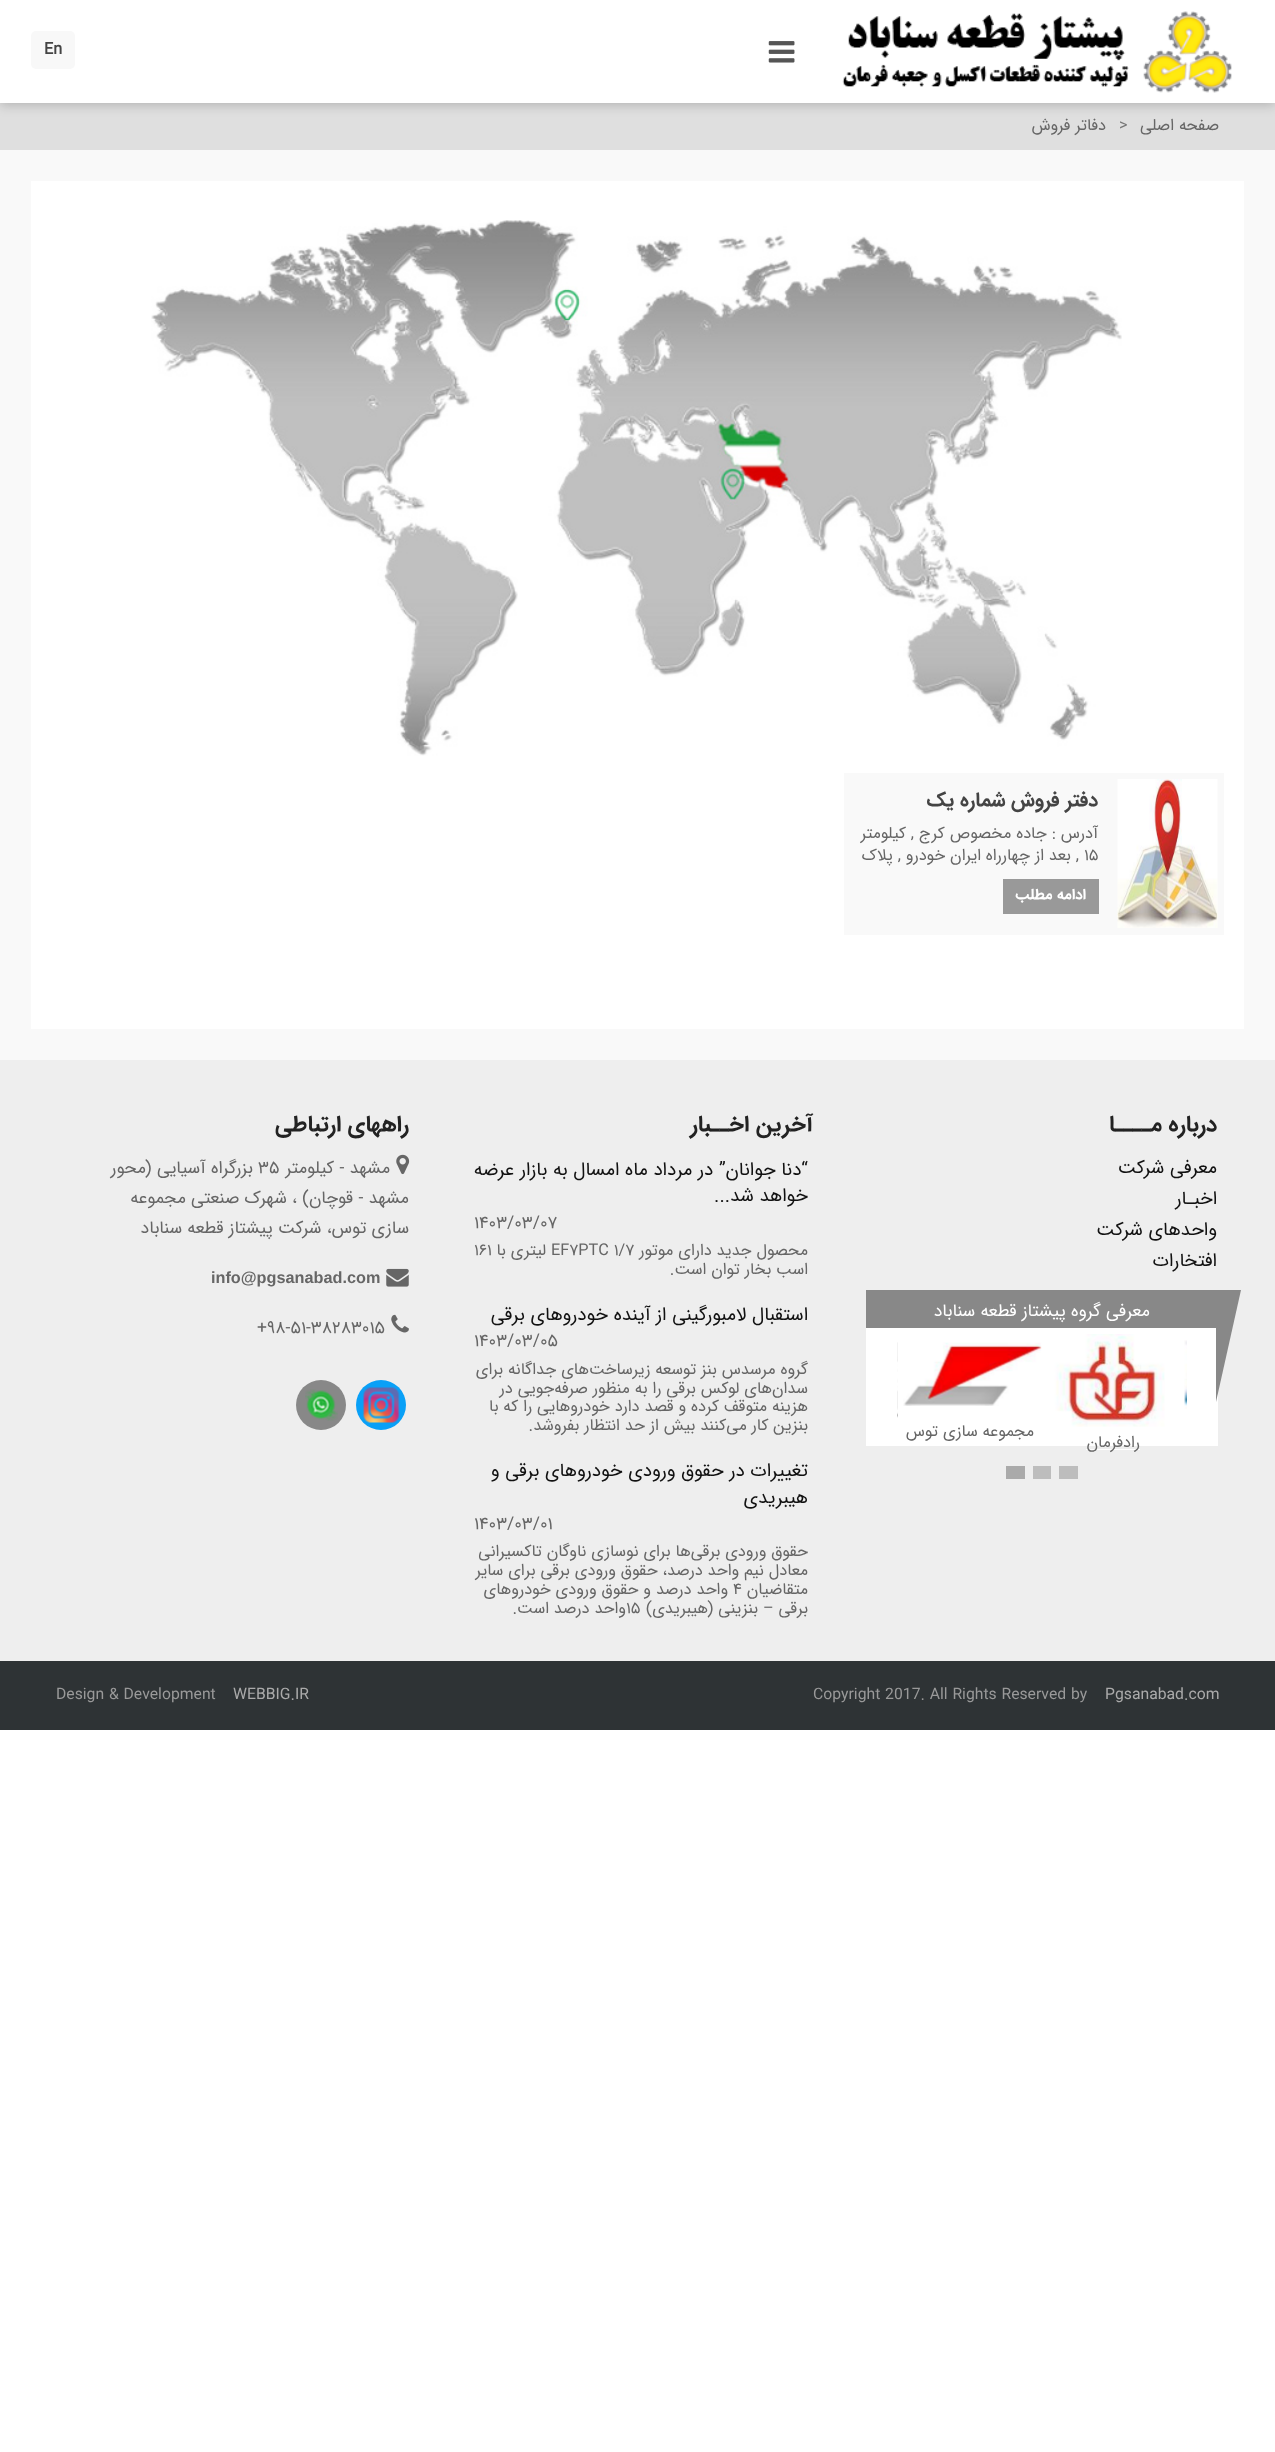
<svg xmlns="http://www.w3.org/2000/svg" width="1275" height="2452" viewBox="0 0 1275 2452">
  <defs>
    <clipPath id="clip1"><path d="M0 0H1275V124H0ZM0 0H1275V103H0Z" clip-rule="evenodd"/></clipPath>
  </defs>
  <rect width="100%" height="100%" fill="#fff"/>
  <path d="M0 103h1275v47H0z" fill="#dfdfdf"/>
  <g clip-path="url(#clip1)">
    <path d="M0 3h1275v102H0z" fill="#00000033" filter="blur(6px)"/>
  </g>
  <rect x="31" width="1213" height="103" rx="6" fill="#fff"/>
  <image x="842" y="11" width="390" height="82" href="img/1.png"/>
  <image x="768" y="41" width="27" height="22" href="img/2.png"/>
  <rect x="31" y="31" width="44" height="38" rx="5" fill="#f8f8f8"/>
  <path d="M0 150h1275v910H0z" fill="#f9f9f9"/>
  <path d="M31 181h1213v848H31z" fill="#fff"/>
  <image x="151" y="220" width="971" height="536" href="img/3.png"/>
  <path d="M844 773h380v162H844z" fill="#f9f9f9"/>
  <image x="1117" y="779" width="101" height="149" href="img/4.png"/>
  <path d="M1003 879h96v35H1003z" fill="#999"/>
  <path d="M0 1060h1275v601H0z" fill="#eee"/>
  <path d="M866 1328h352v118H866z" fill="#fff"/>
  <path d="M866 1290h350v38H866z" fill="#888"/>
  <path d="M1216 1290H1241L1216 1402Z" fill="#888"/>
  <image x="1184" y="1340" width="3" height="69" href="img/5.png"/>
  <image x="897" y="1342" width="1" height="76" href="img/6.png"/>
  <image x="903" y="1342" width="139" height="64" href="img/8.png"/>
  <image x="1040" y="1334" width="125" height="93" href="img/7.png"/>
  <path d="M1086 1449h54v1H1086z" fill="#fff"/>
  <path d="M1059 1466h19v13H1059z" fill="#bdbdbd"/>
  <path d="M1033 1466h18v13H1033z" fill="#bdbdbd"/>
  <path d="M1006 1466h19v13H1006z" fill="#aaa"/>
  <image x="396" y="1154" width="14" height="21" href="img/9.png"/>
  <image x="386" y="1268" width="23" height="19" href="img/10.png"/>
  <image x="391" y="1314" width="18" height="19" href="img/11.png"/>
  <circle cx="381" cy="1405" r="25" fill="#09a0f7"/>
  <image x="363" y="1387" width="37" height="36" href="img/12.png"/>
  <circle cx="321" cy="1405" r="25" fill="#888"/>
  <image x="305" y="1389" width="33" height="32" href="img/13.png"/>
  <path d="M0 1661h1275v69H0z" fill="#2e3335"/>
  <text x="44" y="54" font-family="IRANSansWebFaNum" font-size="16.25" font-weight="bold" fill="#444">En</text>
  <text x="1219" y="130" font-family="IRANSansWebFaNum" font-size="16.25" direction="rtl" fill="#666">صفحه اصلی</text>
  <text x="1119" y="130" font-family="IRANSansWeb" font-size="16.25" fill="#777">&gt;</text>
  <text x="1106" y="130" font-family="IRANSansWebFaNum" font-size="16.25" direction="rtl" fill="#666">دفاتر فروش</text>
  <text x="1098" y="806" font-family="IRANSansWeb" font-size="20" font-weight="bold" direction="rtl" fill="#444">دفتر فروش شماره یک</text>
  <text x="1098" y="838" font-family="IRANSansWebFaNum" font-size="16.25" direction="rtl" fill="#666">آدرس : جاده مخصوص کرج , کیلومتر</text>
  <text x="1084" y="860" font-family="IRANSansWebFaNum" font-size="16.25" fill="#666">۱۵</text>
  <text x="1079" y="860" font-family="IRANSansWebFaNum" font-size="16.25" direction="rtl" fill="#666">, بعد از چهارراه ایران خودرو , پلاک</text>
  <text x="1086" y="899" font-family="IRANSansWeb" font-size="15" font-weight="bold" direction="rtl" fill="#fff">ادامه مطلب</text>
  <text x="1217" y="1131" font-family="IRANSansWeb" font-size="22.5" font-weight="bold" direction="rtl" fill="#222">درباره مــــا</text>
  <g font-family="IRANSansWebFaNum" font-size="18.75" direction="rtl" fill="#111">
    <text x="1217" y="1173">معرفی شرکت</text>
    <text x="1217" y="1204">اخبـار</text>
    <text x="1217" y="1235">واحدهای شرکت</text>
    <text x="1217" y="1266">افتخارات</text>
  </g>
  <text x="1150" y="1316" font-family="IRANSansWebFaNum" font-size="17.5" direction="rtl" fill="#fff">معرفی گروه پیشتاز قطعه سناباد</text>
  <g font-family="IRANSansWebFaNum" font-size="16.25" direction="rtl" fill="#666">
    <text x="1140" y="1447">رادفرمان</text>
    <text x="1034" y="1436">مجموعه سازی توس</text>
  </g>
  <text x="813" y="1131" font-family="IRANSansWeb" font-size="22.5" font-weight="bold" direction="rtl" fill="#222">آخرین اخــبار</text>
  <g font-family="IRANSansWebFaNum" font-size="18.75" direction="rtl" fill="#111">
    <text x="808" y="1175">“دنا جوانان” در مرداد ماه امسال به بازار عرضه</text>
    <text x="808" y="1201">خواهد شد...</text>
  </g>
  <text x="474" y="1228" font-family="IRANSansWebFaNum" font-size="17.5" fill="#666">۱۴۰۳/۰۳/۰۷</text>
  <text x="808" y="1255" font-family="IRANSansWebFaNum" font-size="16.25" direction="rtl" fill="#666">محصول جدید دارای موتور</text>
  <text x="551" y="1255" font-family="IRANSansWebFaNum" font-size="16.25" fill="#666">EF۷PTC ۱/۷</text>
  <text x="546" y="1255" font-family="IRANSansWebFaNum" font-size="16.25" direction="rtl" fill="#666">لیتری با</text>
  <text x="474" y="1255" font-family="IRANSansWebFaNum" font-size="16.25" fill="#666">۱۶۱</text>
  <text x="808" y="1274" font-family="IRANSansWebFaNum" font-size="16.25" direction="rtl" fill="#666">اسب بخار توان است.</text>
  <text x="808" y="1320" font-family="IRANSansWebFaNum" font-size="18.75" direction="rtl" fill="#111">استقبال لامبورگینی از آینده خودروهای برقی</text>
  <text x="474" y="1346" font-family="IRANSansWebFaNum" font-size="17.5" fill="#666">۱۴۰۳/۰۳/۰۵</text>
  <g font-family="IRANSansWebFaNum" font-size="16.25" direction="rtl" fill="#666">
    <text x="808" y="1374">گروه مرسدس بنز توسعه زیرساخت‌های جداگانه برای</text>
    <text x="808" y="1393">سدان‌های لوکس برقی را به منظور صرفه‌جویی در</text>
    <text x="808" y="1411">هزینه متوقف کرده و قصد دارد خودروهایی را که با</text>
    <text x="808" y="1430">بنزین کار می‌کنند بیش از حد انتظار بفروشد.</text>
  </g>
  <g font-family="IRANSansWebFaNum" font-size="18.75" direction="rtl" fill="#111">
    <text x="808" y="1476">تغییرات در حقوق ورودی خودروهای برقی و</text>
    <text x="808" y="1503">هیبریدی</text>
  </g>
  <text x="474" y="1529" font-family="IRANSansWebFaNum" font-size="17.5" fill="#666">۱۴۰۳/۰۳/۰۱</text>
  <g font-family="IRANSansWebFaNum" font-size="16.25" direction="rtl" fill="#666">
    <text x="808" y="1556">حقوق ورودی برقی‌ها برای نوسازی ناوگان تاکسیرانی</text>
    <text x="808" y="1575">معادل نیم واحد درصد، حقوق ورودی برقی برای سایر</text>
    <text x="808" y="1594">متقاضیان</text>
  </g>
  <text x="733" y="1594" font-family="IRANSansWebFaNum" font-size="16.25" fill="#666">۴</text>
  <g font-family="IRANSansWebFaNum" font-size="16.25" direction="rtl" fill="#666">
    <text x="728" y="1594">واحد درصد و حقوق ورودی خودروهای</text>
    <text x="808" y="1613">برقی – بنزینی (هیبریدی)</text>
  </g>
  <text x="626" y="1613" font-family="IRANSansWebFaNum" font-size="16.25" fill="#666">۱۵</text>
  <text x="626" y="1613" font-family="IRANSansWebFaNum" font-size="16.25" direction="rtl" fill="#666">واحد درصد است.</text>
  <text x="409" y="1131" font-family="IRANSansWeb" font-size="22.5" font-weight="bold" direction="rtl" fill="#222">راههای ارتباطی</text>
  <text x="390" y="1173" font-family="IRANSansWebFaNum" font-size="17.5" direction="rtl" fill="#666">مشهد - کیلومتر</text>
  <text x="258" y="1173" font-family="IRANSansWebFaNum" font-size="17.5" fill="#666">35</text>
  <g font-family="IRANSansWebFaNum" font-size="17.5" direction="rtl" fill="#666">
    <text x="253" y="1173">بزرگراه آسیایی (محور</text>
    <text x="409" y="1203">مشهد - قوچان) ، شهرک صنعتی مجموعه</text>
    <text x="409" y="1233">سازی توس، شرکت پیشتاز قطعه سناباد</text>
  </g>
  <text x="211" y="1283" font-family="Liberation Sans" font-size="16.25" font-weight="bold" fill="#666">info@pgsanabad.com</text>
  <text x="257" y="1333" font-family="IRANSansWebFaNum" font-size="17.5" fill="#666">+98-51-38283015</text>
  <text x="1105" y="1699" font-family="IRANSansWebFaNum" font-size="15.75" fill="#aaa">Pgsanabad.com</text>
  <text x="813" y="1699" font-family="IRANSansWeb" font-size="15.75" fill="#999">Copyright 2017. All Rights Reserved by</text>
  <text x="233" y="1699" font-family="IRANSansWebFaNum" font-size="15.75" fill="#aaa">WEBBIG.IR</text>
  <text x="56" y="1699" font-family="IRANSansWeb" font-size="15.75" fill="#999">Design &amp; Development</text>
</svg>
